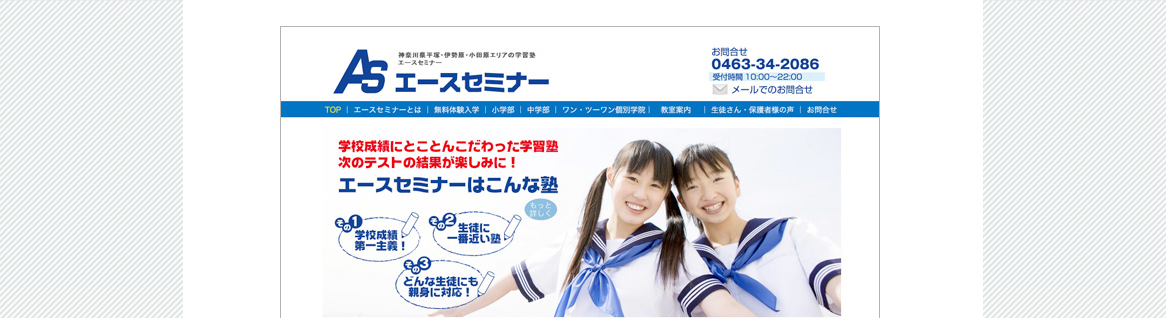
<svg xmlns="http://www.w3.org/2000/svg" width="1166" height="318" viewBox="0 0 1166 318">
  <rect width="100%" height="100%" fill="#fff"/>
  <image x="0" y="0" width="1166" height="318" href="img/1.png"/>
  <path d="M183 0h800v318H183z" fill="#fff"/>
  <image x="279" y="26" width="607" height="292" href="img/2.png"/>
</svg>
